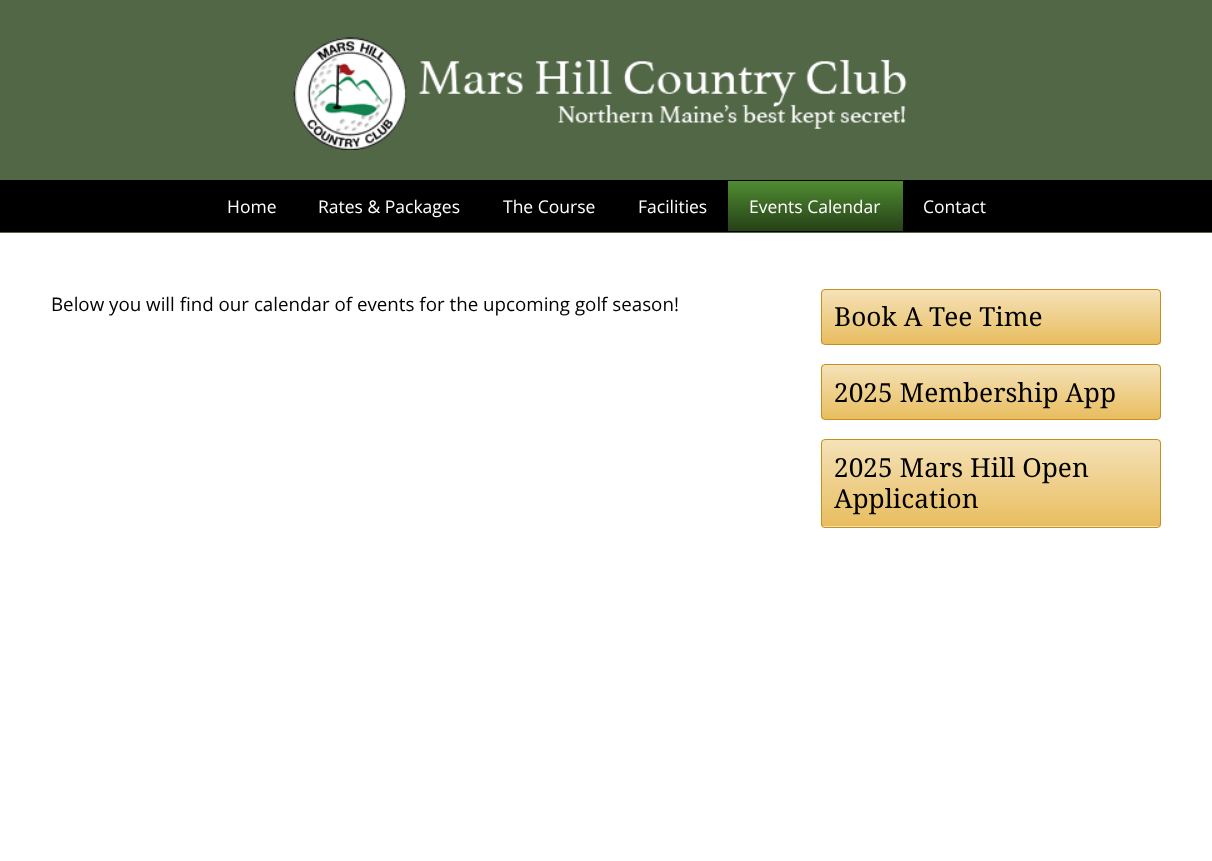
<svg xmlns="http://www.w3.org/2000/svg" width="1212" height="861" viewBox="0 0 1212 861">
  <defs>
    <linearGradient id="g1" gradientUnits="userSpaceOnUse" x1="728" y1="181" x2="728" y2="231"><stop offset="0" stop-color="#508c32"/><stop offset="1" stop-color="#254117"/></linearGradient>
    <clipPath id="clip1"><rect x="821" y="289" width="340" height="56" rx="4"/></clipPath>
    <linearGradient id="g2" gradientUnits="userSpaceOnUse" x1="823" y1="290" x2="823" y2="344"><stop offset="0" stop-color="#f5e2b8"/><stop offset="1" stop-color="#e8bd5f"/></linearGradient>
    <clipPath id="clip2"><rect x="821" y="364" width="340" height="56" rx="4"/></clipPath>
    <linearGradient id="g3" gradientUnits="userSpaceOnUse" x1="823" y1="365" x2="823" y2="419"><stop offset="0" stop-color="#f5e2b8"/><stop offset="1" stop-color="#e8bd5f"/></linearGradient>
    <clipPath id="clip3"><rect x="821" y="439" width="340" height="89" rx="4"/></clipPath>
    <linearGradient id="g4" gradientUnits="userSpaceOnUse" x1="823" y1="440" x2="823" y2="526"><stop offset="0" stop-color="#f5e2b8"/><stop offset="1" stop-color="#e8bd5f"/></linearGradient>
    <linearGradient id="g5" gradientUnits="userSpaceOnUse" x1="823" y1="526" x2="823" y2="613"><stop offset="0" stop-color="#f5e2b8"/><stop offset="1" stop-color="#e8bd5f"/></linearGradient>
  </defs>
  <rect width="100%" height="100%" fill="#fff"/>
  <path d="M0 0h1212v233H0z" fill="#516746"/>
  <image x="293" y="37" width="614" height="113" href="img/1.png"/>
  <path d="M0 180h1212v52H0z" fill="#000"/>
  <path d="M728 181h175v50H728z" fill="url(#g1)"/>
  <g clip-path="url(#clip1)">
    <path d="M821 290h340v54H821z" fill="url(#g2)"/>
  </g>
  <rect x="821.5" y="289.5" width="339" height="55" rx="3.5" fill="none" stroke="#c5901c"/>
  <g clip-path="url(#clip2)">
    <path d="M821 365h340v54H821z" fill="url(#g3)"/>
  </g>
  <rect x="821.5" y="364.5" width="339" height="55" rx="3.5" fill="none" stroke="#c5901c"/>
  <g clip-path="url(#clip3)">
    <path d="M821 440h340v86H821z" fill="url(#g4)"/>
    <path d="M821 526h340v2H821z" fill="url(#g5)"/>
  </g>
  <rect x="821.5" y="439.5" width="339" height="88" rx="3.5" fill="none" stroke="#c5901c"/>
  <g font-family="Open Sans" font-size="17.5" fill="#fff">
    <text x="227" y="213">Home</text>
    <text x="318" y="213">Rates &amp; Packages</text>
    <text x="503" y="213">The Course</text>
    <text x="638" y="213">Facilities</text>
    <text x="749" y="213">Events Calendar</text>
    <text x="923" y="213">Contact</text>
  </g>
  <text x="51" y="311" font-family="Open Sans" font-size="18.75" fill="#000">Below you will find our calendar of events for the upcoming golf season!</text>
  <g font-family="Droid Serif" font-size="26.25" fill="#000">
    <text x="834" y="326">Book A Tee Time</text>
    <text x="834" y="402">2025 Membership App</text>
    <text x="834" y="477">2025 Mars Hill Open</text>
    <text x="834" y="508">Application</text>
  </g>
</svg>
